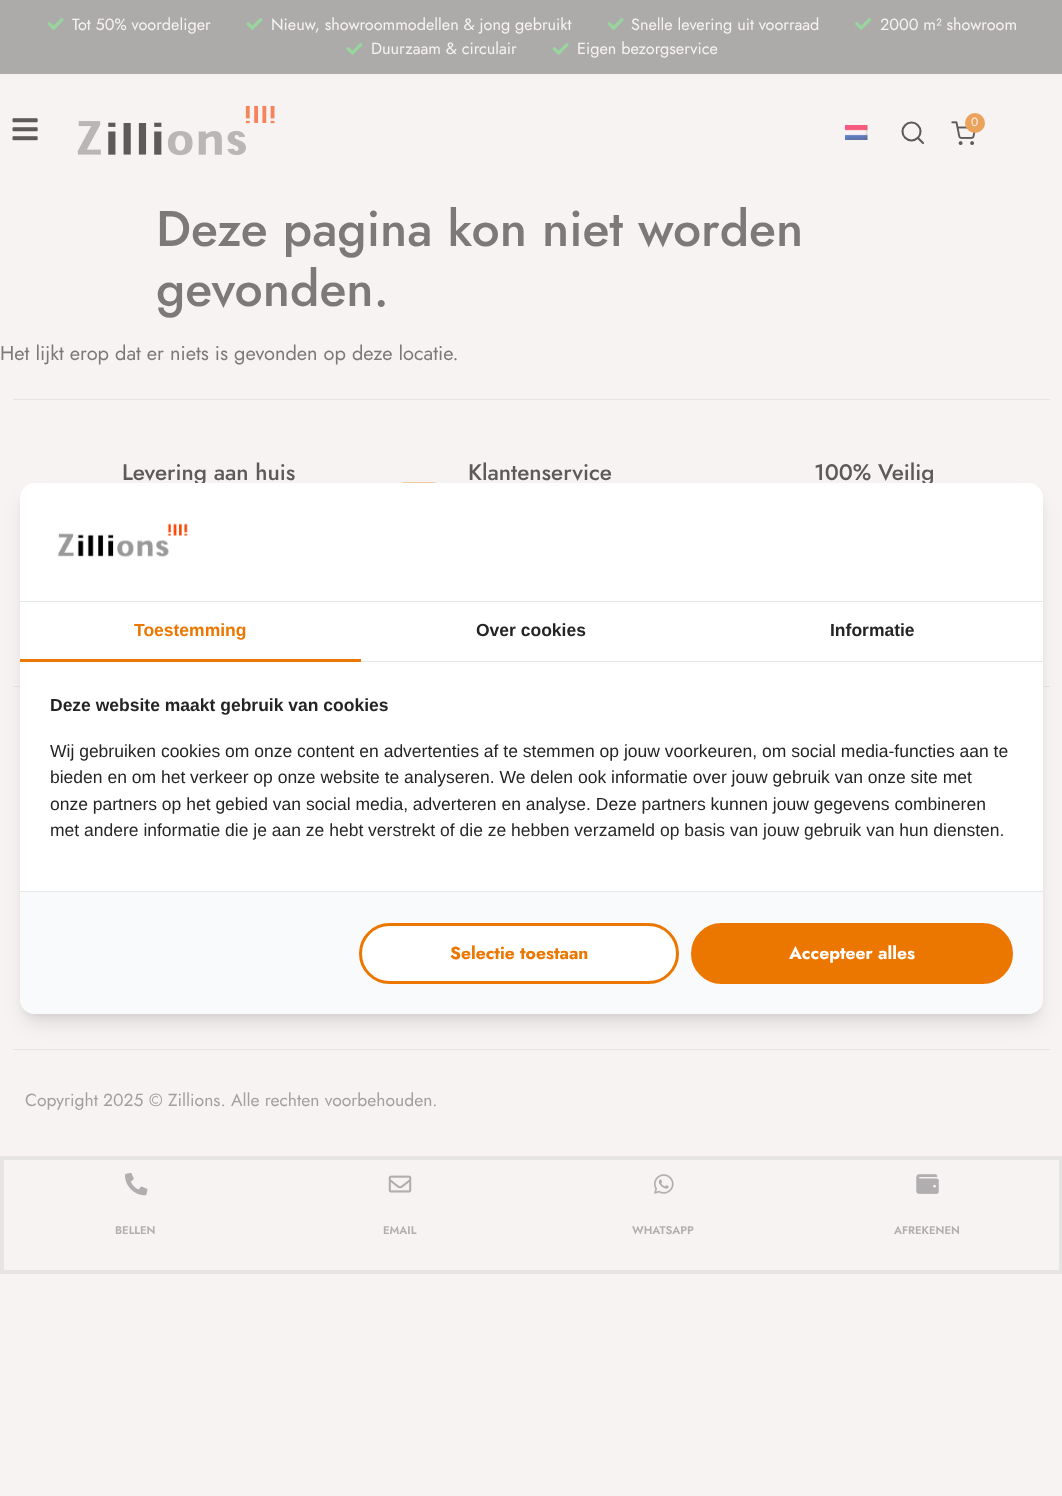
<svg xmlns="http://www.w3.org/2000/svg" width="1062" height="1496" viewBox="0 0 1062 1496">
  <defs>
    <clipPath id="clip1"><rect x="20" y="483" width="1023" height="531" rx="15"/></clipPath>
  </defs>
  <rect width="100%" height="100%" fill="#f7f3f3"/>
  <path d="M0 0h1062v74H0z" fill="#adaaaa"/>
  <image x="47" y="18" width="17" height="12" href="img/1.png"/>
  <image x="246" y="17" width="17" height="13" href="img/2.png"/>
  <image x="607" y="18" width="17" height="12" href="img/1.png"/>
  <image x="855" y="17" width="17" height="13" href="img/3.png"/>
  <image x="346" y="42" width="17" height="13" href="img/2.png"/>
  <image x="552" y="43" width="17" height="12" href="img/1.png"/>
  <image x="12" y="118" width="26" height="23" href="img/4.png"/>
  <image x="77" y="105" width="198" height="51" href="img/5.png"/>
  <image x="845" y="125" width="23" height="15" href="img/6.png"/>
  <circle cx="911.5" cy="131.5" r="9" fill="none" stroke="#5e5a5a" stroke-width="2.1"/>
  <path d="M923 143L918 138" fill="none" stroke="#5e5a5a" stroke-width="2.1" stroke-linecap="round" stroke-linejoin="round"/>
  <image x="951" y="121" width="25" height="24" href="img/7.png"/>
  <circle cx="975" cy="123" r="10" fill="#eba25a"/>
  <path d="M13 399h1037v1H13z" fill="#e7e4e4"/>
  <path d="M13 686h1037v1H13z" fill="#e7e4e4"/>
  <image x="401" y="482" width="36" height="1" href="img/8.png"/>
  <path d="M13 1049h1037v1H13z" fill="#e7e4e4"/>
  <path d="M2 1158h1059v114H2z" fill="none" stroke="#e7e4e4" stroke-width="4"/>
  <image x="125" y="1172" width="23" height="24" href="img/9.png"/>
  <image x="388" y="1175" width="24" height="18" href="img/10.png"/>
  <image x="654" y="1174" width="20" height="20" href="img/11.png"/>
  <image x="916" y="1174" width="23" height="20" href="img/12.png"/>
  <rect x="25" y="493" width="1013" height="521" rx="10" fill="#0000001a" filter="blur(4px)"/>
  <rect x="24" y="499" width="1015" height="524" rx="11" fill="#0000001a" filter="blur(9.5px)"/>
  <g font-family="Jost" font-size="16.25" fill="#f7f3f3">
    <text x="72" y="30">Tot 50% voordeliger</text>
    <text x="271" y="30">Nieuw, showroommodellen &amp; jong gebruikt</text>
    <text x="631" y="30">Snelle levering uit voorraad</text>
    <text x="880" y="30">2000 m² showroom</text>
    <text x="371" y="54">Duurzaam &amp; circulair</text>
    <text x="577" y="54">Eigen bezorgservice</text>
  </g>
  <text x="971" y="126" font-family="Jost" font-size="12" fill="#f7f3f3">0</text>
  <g font-family="Jost" font-size="50" font-weight="500" fill="#7d7979">
    <text x="156" y="246">Deze pagina kon niet worden</text>
    <text x="156" y="306">gevonden.</text>
  </g>
  <text x="0" y="360" font-family="Jost" font-size="20" fill="#7d7979">Het lijkt erop dat er niets is gevonden op deze locatie.</text>
  <g font-family="Jost" font-size="22.5" font-weight="500" fill="#5e5a5a">
    <text x="122" y="480">Levering aan huis</text>
    <text x="468" y="480">Klantenservice</text>
    <text x="814" y="480">100% Veilig</text>
  </g>
  <text x="25" y="1106" font-family="Jost" font-size="17.5" fill="#a39f9f">Copyright 2025 © Zillions. Alle rechten voorbehouden.</text>
  <g font-family="Jost" font-size="11.25" font-weight="600" fill="#b1aeb0">
    <text x="115" y="1234">BELLEN</text>
    <text x="383" y="1234">EMAIL</text>
    <text x="632" y="1234">WHATSAPP</text>
    <text x="894" y="1234">AFREKENEN</text>
  </g>
  <rect x="20" y="483" width="1023" height="531" rx="15" fill="#fff"/>
  <path d="M20 601h1023v1H20z" fill="#e5e7eb"/>
  <image x="58" y="523" width="130" height="34" href="img/13.png"/>
  <path d="M361 661h682v1H361z" fill="#e5e7eb"/>
  <path d="M20 659h341v3H20z" fill="#eb7700"/>
  <text x="134" y="636" font-family="Liberation Sans" font-size="17.5" font-weight="bold" fill="#eb7700">Toestemming</text>
  <g font-family="Liberation Sans" font-size="17.5" font-weight="bold" fill="#242424">
    <text x="476" y="636">Over cookies</text>
    <text x="830" y="636">Informatie</text>
    <text x="50" y="711">Deze website maakt gebruik van cookies</text>
  </g>
  <g font-family="Liberation Sans" font-size="17.5" fill="#242424">
    <text x="50" y="757">Wij gebruiken cookies om onze content en advertenties af te stemmen op jouw voorkeuren, om social media-functies aan te</text>
    <text x="50" y="783">bieden en om het verkeer op onze website te analyseren. We delen ook informatie over jouw gebruik van onze site met</text>
    <text x="50" y="810">onze partners op het gebied van social media, adverteren en analyse. Deze partners kunnen jouw gegevens combineren</text>
    <text x="50" y="836">met andere informatie die je aan ze hebt verstrekt of die ze hebben verzameld op basis van jouw gebruik van hun diensten.</text>
  </g>
  <g clip-path="url(#clip1)">
    <path d="M10 856h1043v143H10z" fill="#fff" filter="blur(12.5px)"/>
  </g>
  <path d="M20 891H1043V999C1043 1007.5 1036.5 1014 1028 1014H35C26.5 1014 20 1007.5 20 999Z" fill="#f9fafb"/>
  <path d="M20 891h1023v1H20z" fill="#e5e7eb"/>
  <rect x="360.5" y="924.5" width="317" height="58" rx="29" fill="#fff" stroke="#eb7700" stroke-width="3"/>
  <text x="450" y="959" font-family="Jost" font-size="17.5" font-weight="bold" fill="#eb7700">Selectie toestaan</text>
  <rect x="692.5" y="924.5" width="319" height="58" rx="29" fill="#eb7700" stroke="#eb7700" stroke-width="3"/>
  <text x="789" y="959" font-family="Jost" font-size="17.5" font-weight="bold" fill="#fff">Accepteer alles</text>
</svg>
